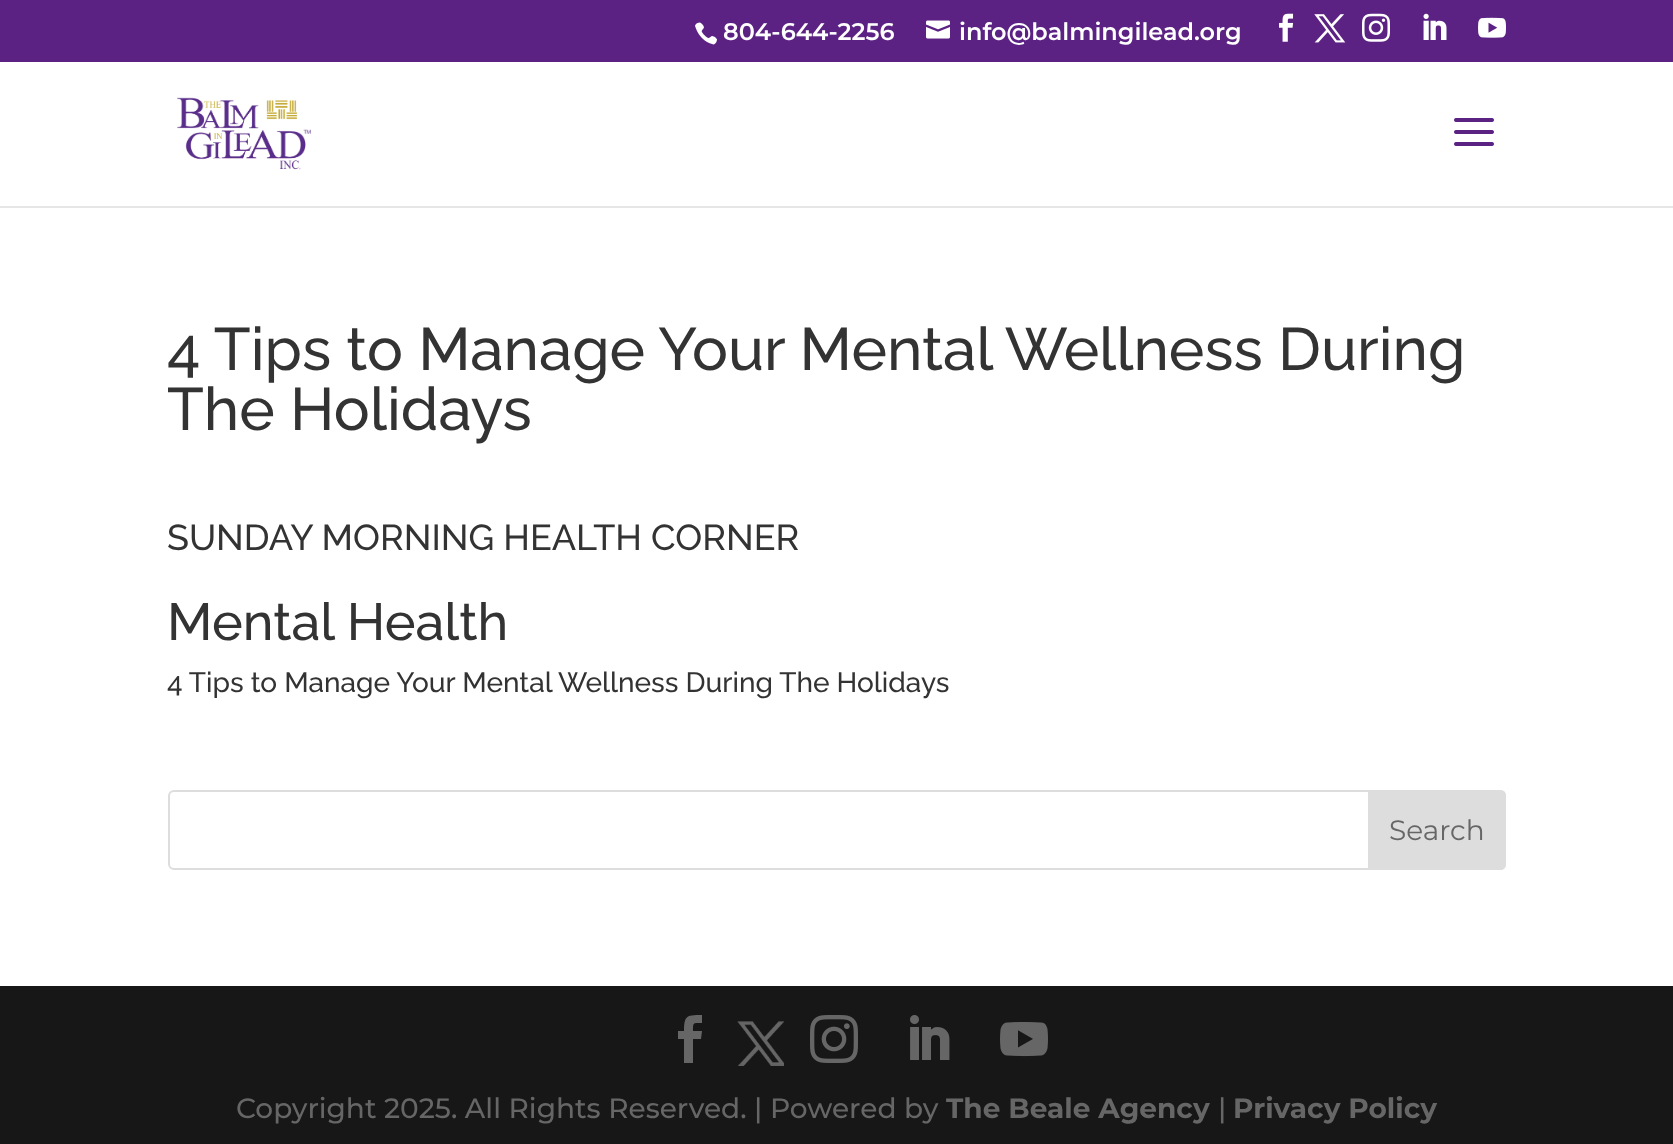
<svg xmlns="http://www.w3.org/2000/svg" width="1673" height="1144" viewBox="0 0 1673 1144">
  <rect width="100%" height="100%" fill="#fff"/>
  <path d="M0 0h1673v62H0z" fill="#5b2183"/>
  <image x="695" y="22" width="22" height="23" href="img/1.png"/>
  <image x="926" y="20" width="24" height="19" href="img/2.png"/>
  <image x="1279" y="13" width="15" height="29" href="img/3.png"/>
  <image x="1314" y="14" width="32" height="29" href="img/4.png"/>
  <image x="1362" y="13" width="28" height="29" href="img/5.png"/>
  <image x="1423" y="13" width="24" height="27" href="img/6.png"/>
  <image x="1478" y="17" width="28" height="21" href="img/7.png"/>
  <path d="M0 206h1673v2H0z" fill="#e6e6e6"/>
  <image x="177" y="97" width="134" height="73" href="img/8.png"/>
  <image x="1454" y="118" width="40" height="28" href="img/9.png"/>
  <rect x="169" y="791" width="1336" height="78" rx="5" fill="none" stroke="#ddd" stroke-width="2"/>
  <path d="M1369 791H1500C1503 791 1505 793 1505 796V864C1505 867 1503 869 1500 869H1369Z" fill="#ddd" stroke="#ddd" stroke-width="2"/>
  <path d="M0 986h1673v158H0z" fill="#171717"/>
  <path d="M684 1063H693V1039H701L702 1031H693C693 1022 693 1023 702 1023V1015C687 1015 684 1015 684 1031H678V1039H684Z" fill="#666"/>
  <image x="737" y="1021" width="47" height="45" href="img/10.png"/>
  <image x="810" y="1015" width="48" height="48" href="img/11.png"/>
  <image x="910" y="1015" width="40" height="45" href="img/12.png"/>
  <image x="1000" y="1022" width="48" height="35" href="img/13.png"/>
  <g font-family="'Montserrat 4'" font-size="24" font-weight="100" fill="#fff">
    <text x="723" y="40">804-644-2256</text>
    <text x="959" y="40">info@balmingilead.org</text>
  </g>
  <g font-family="Raleway" font-size="60" font-weight="500" fill="#333">
    <text x="167" y="370">4 Tips to Manage Your Mental Wellness During</text>
    <text x="167" y="430">The Holidays</text>
  </g>
  <text x="167" y="550" font-family="Raleway" font-size="36" font-weight="500" fill="#333">SUNDAY MORNING HEALTH CORNER</text>
  <text x="167" y="640" font-family="Raleway" font-size="52" font-weight="500" fill="#333">Mental Health</text>
  <text x="167" y="692" font-family="Raleway" font-size="28" font-weight="500" fill="#333">4 Tips to Manage Your Mental Wellness During The Holidays</text>
  <text x="1389" y="840" font-family="Montserrat" font-size="28" font-weight="100" fill="#666">Search</text>
  <text x="236" y="1118" font-family="'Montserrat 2'" font-size="28" font-weight="100" fill="#666">Copyright 2025. All Rights Reserved. | Powered by</text>
  <text x="946" y="1118" font-family="'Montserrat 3'" font-size="28" font-weight="100" fill="#666">The Beale Agency</text>
  <text x="1218" y="1118" font-family="'Montserrat 2'" font-size="28" font-weight="100" fill="#666">|</text>
  <text x="1233" y="1118" font-family="'Montserrat 3'" font-size="28" font-weight="100" fill="#666">Privacy Policy</text>
</svg>
